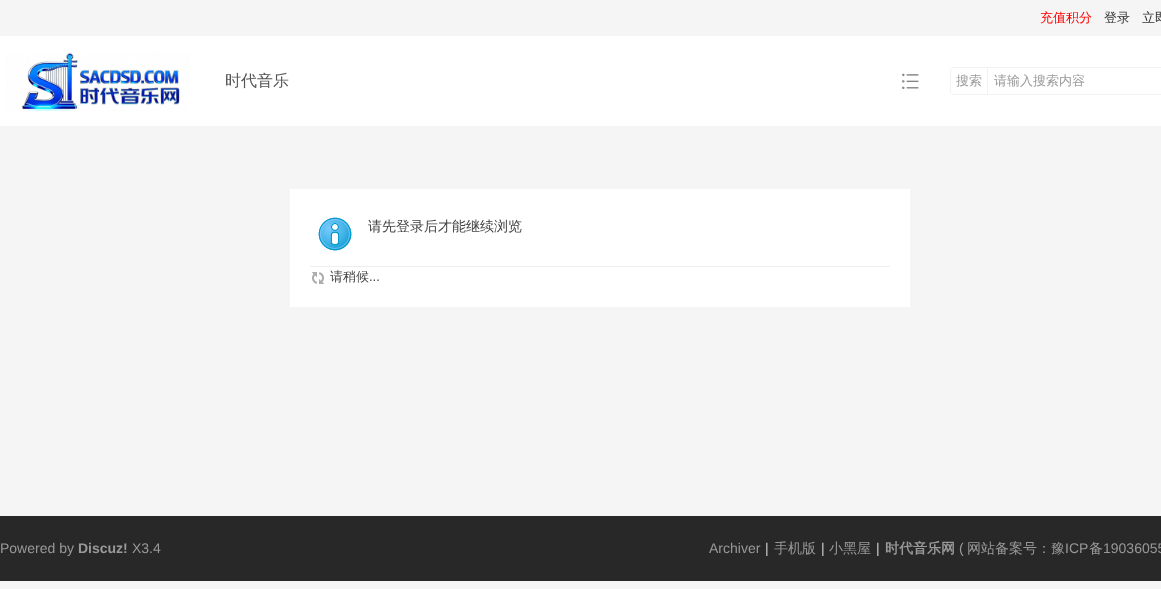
<svg xmlns="http://www.w3.org/2000/svg" width="1161" height="589" viewBox="0 0 1161 589">
  <rect width="100%" height="100%" fill="#f5f5f5"/>
  <path d="M0 36h1161v90H0z" fill="#fff"/>
  <image x="5" y="52" width="184" height="59" href="img/1.png"/>
  <image x="902" y="73" width="17" height="17" href="img/2.png"/>
  <rect x="950.5" y="67.5" width="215" height="27" rx="3.5" fill="none" stroke="#f2f2f2"/>
  <path d="M954 68H988V94H954C952.5 94 951 92.5 951 91V71C951 69.5 952.5 68 954 68Z" fill="#fff"/>
  <path d="M987 68h1v26H987z" fill="#f2f2f2"/>
  <path d="M290 189h620v118H290z" fill="#fff"/>
  <image x="318" y="217" width="34" height="34" href="img/3.png"/>
  <path d="M310 266h580v1H310z" fill="#eee"/>
  <image x="312" y="272" width="12" height="12" href="img/4.png"/>
  <path d="M0 516h1161v65H0z" fill="#282828"/>
  <text x="1040" y="22" font-family="WenQuanYi Zen Hei" font-size="13" font-weight="500" fill="#f00">充值积分</text>
  <g font-family="WenQuanYi Zen Hei" font-size="13" font-weight="500" fill="#333">
    <text x="1104" y="22">登录</text>
    <text x="1142" y="22">立即</text>
  </g>
  <text x="225" y="86" font-family="WenQuanYi Zen Hei" font-size="16" font-weight="500" fill="#555">时代音乐</text>
  <g font-family="WenQuanYi Zen Hei" font-size="13" font-weight="500" fill="#999">
    <text x="956" y="85">搜索</text>
    <text x="994" y="85">请输入搜索内容</text>
  </g>
  <text x="368" y="231" font-family="WenQuanYi Zen Hei" font-size="14" font-weight="500" fill="#444">请先登录后才能继续浏览</text>
  <text x="330" y="281" font-family="WenQuanYi Zen Hei" font-size="13" font-weight="500" fill="#444">请稍候</text>
  <text x="369" y="281" font-family="Liberation Sans" font-size="13" fill="#444">...</text>
  <text x="0" y="553" font-family="Liberation Sans" font-size="14" fill="#999">Powered by</text>
  <text x="78" y="553" font-family="Liberation Sans" font-size="14" font-weight="bold" fill="#999">Discuz!</text>
  <g font-family="Liberation Sans" font-size="14" fill="#999">
    <text x="132" y="553">X3.4</text>
    <text x="709" y="553">Archiver</text>
  </g>
  <text x="765" y="553" font-family="Liberation Sans" font-size="14" fill="#ccc">|</text>
  <text x="774" y="553" font-family="WenQuanYi Zen Hei" font-size="14" font-weight="500" fill="#999">手机版</text>
  <text x="821" y="553" font-family="Liberation Sans" font-size="14" fill="#ccc">|</text>
  <text x="829" y="553" font-family="WenQuanYi Zen Hei" font-size="14" font-weight="500" fill="#999">小黑屋</text>
  <text x="876" y="553" font-family="Liberation Sans" font-size="14" fill="#ccc">|</text>
  <text x="885" y="553" font-family="WenQuanYi Zen Hei" font-size="14" font-weight="bold" fill="#999">时代音乐网</text>
  <text x="959" y="553" font-family="Liberation Sans" font-size="14" fill="#999">(</text>
  <text x="967" y="553" font-family="WenQuanYi Zen Hei" font-size="14" font-weight="500" fill="#999">网站备案号：豫</text>
  <text x="1065" y="553" font-family="Liberation Sans" font-size="14" fill="#999">ICP</text>
  <text x="1089" y="553" font-family="WenQuanYi Zen Hei" font-size="14" font-weight="500" fill="#999">备</text>
  <text x="1103" y="553" font-family="Liberation Sans" font-size="14" fill="#999">19036055</text>
</svg>
